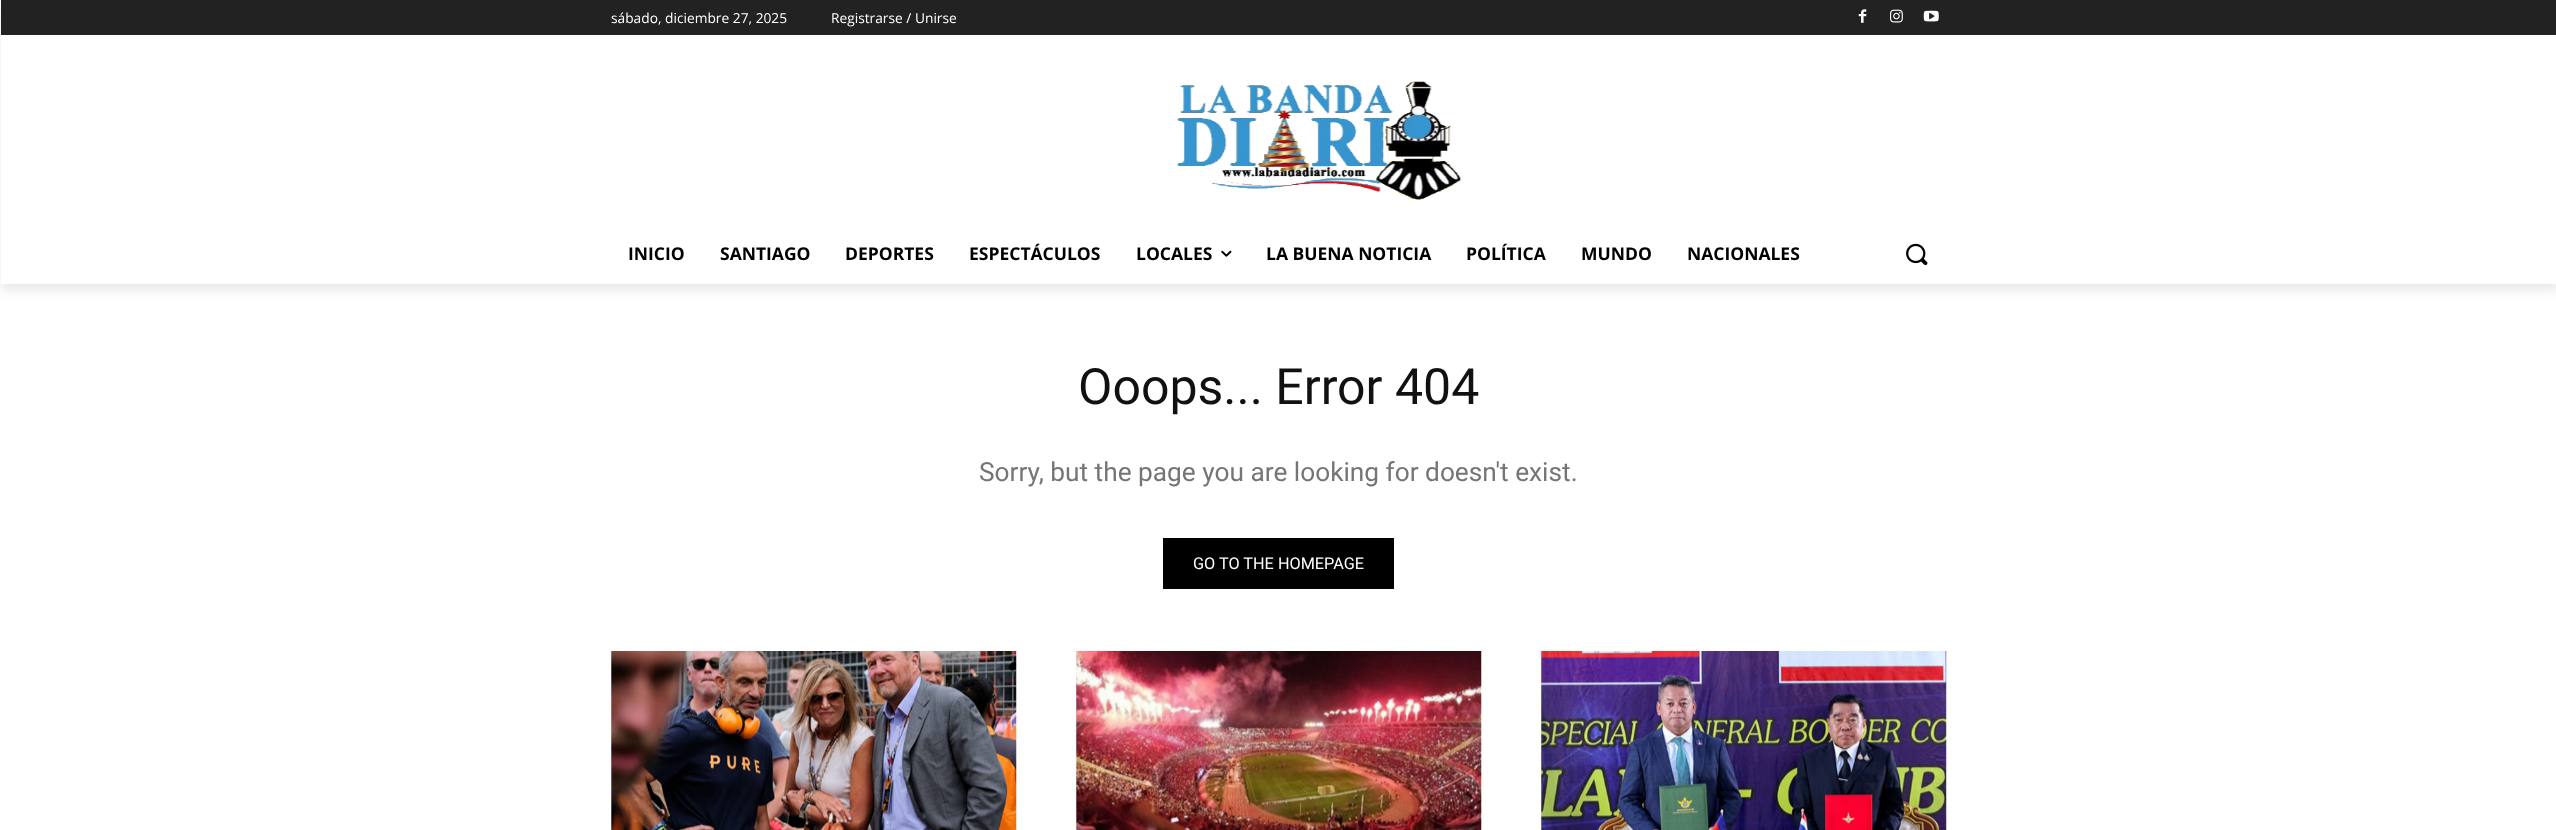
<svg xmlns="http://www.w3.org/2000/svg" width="2556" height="830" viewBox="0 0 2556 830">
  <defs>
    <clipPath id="clip1"><path d="M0 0H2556V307H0ZM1 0H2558V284H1Z" clip-rule="evenodd"/></clipPath>
  </defs>
  <rect width="100%" height="100%" fill="#fff"/>
  <path d="M1 0h2555v35H1z" fill="#222"/>
  <image x="1858" y="9" width="9" height="14" href="img/1.png"/>
  <image x="1890" y="9" width="13" height="14" href="img/2.png"/>
  <image x="1923" y="10" width="16" height="12" href="img/3.png"/>
  <image x="1177" y="81" width="285" height="119" href="img/4.png"/>
  <g clip-path="url(#clip1)">
    <path d="M1 8h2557v283H1z" fill="#00000014" filter="blur(5px)"/>
  </g>
  <image x="1221" y="250" width="11" height="7" href="img/5.png"/>
  <image x="1906" y="243" width="22" height="23" href="img/6.png"/>
  <path d="M1163 538h231v51H1163z" fill="#000"/>
  <image x="611" y="651" width="406" height="179" href="img/7.png"/>
  <image x="1076" y="651" width="406" height="179" href="img/8.png"/>
  <image x="1541" y="651" width="406" height="179" href="img/9.png"/>
  <g font-family="Open Sans" font-size="13.75" fill="#fff">
    <text x="611" y="23">sábado, diciembre 27, 2025</text>
    <text x="831" y="23">Registrarse / Unirse</text>
  </g>
  <g font-family="Open Sans" font-size="17.5" font-weight="bold" fill="#000">
    <text x="628" y="260">INICIO</text>
    <text x="720" y="260">SANTIAGO</text>
    <text x="845" y="260">DEPORTES</text>
    <text x="969" y="260">ESPECTÁCULOS</text>
    <text x="1136" y="260">LOCALES</text>
    <text x="1266" y="260">LA BUENA NOTICIA</text>
    <text x="1466" y="260">POLÍTICA</text>
    <text x="1581" y="260">MUNDO</text>
    <text x="1687" y="260">NACIONALES</text>
  </g>
  <text x="1078" y="404" font-family="Roboto" font-size="50" fill="#111">Ooops... Error 404</text>
  <text x="979" y="481" font-family="Roboto" font-size="26.25" fill="#757575">Sorry, but the page you are looking for doesn't exist.</text>
  <text x="1193" y="569" font-family="Roboto" font-size="16.25" fill="#fff">GO TO THE HOMEPAGE</text>
</svg>
